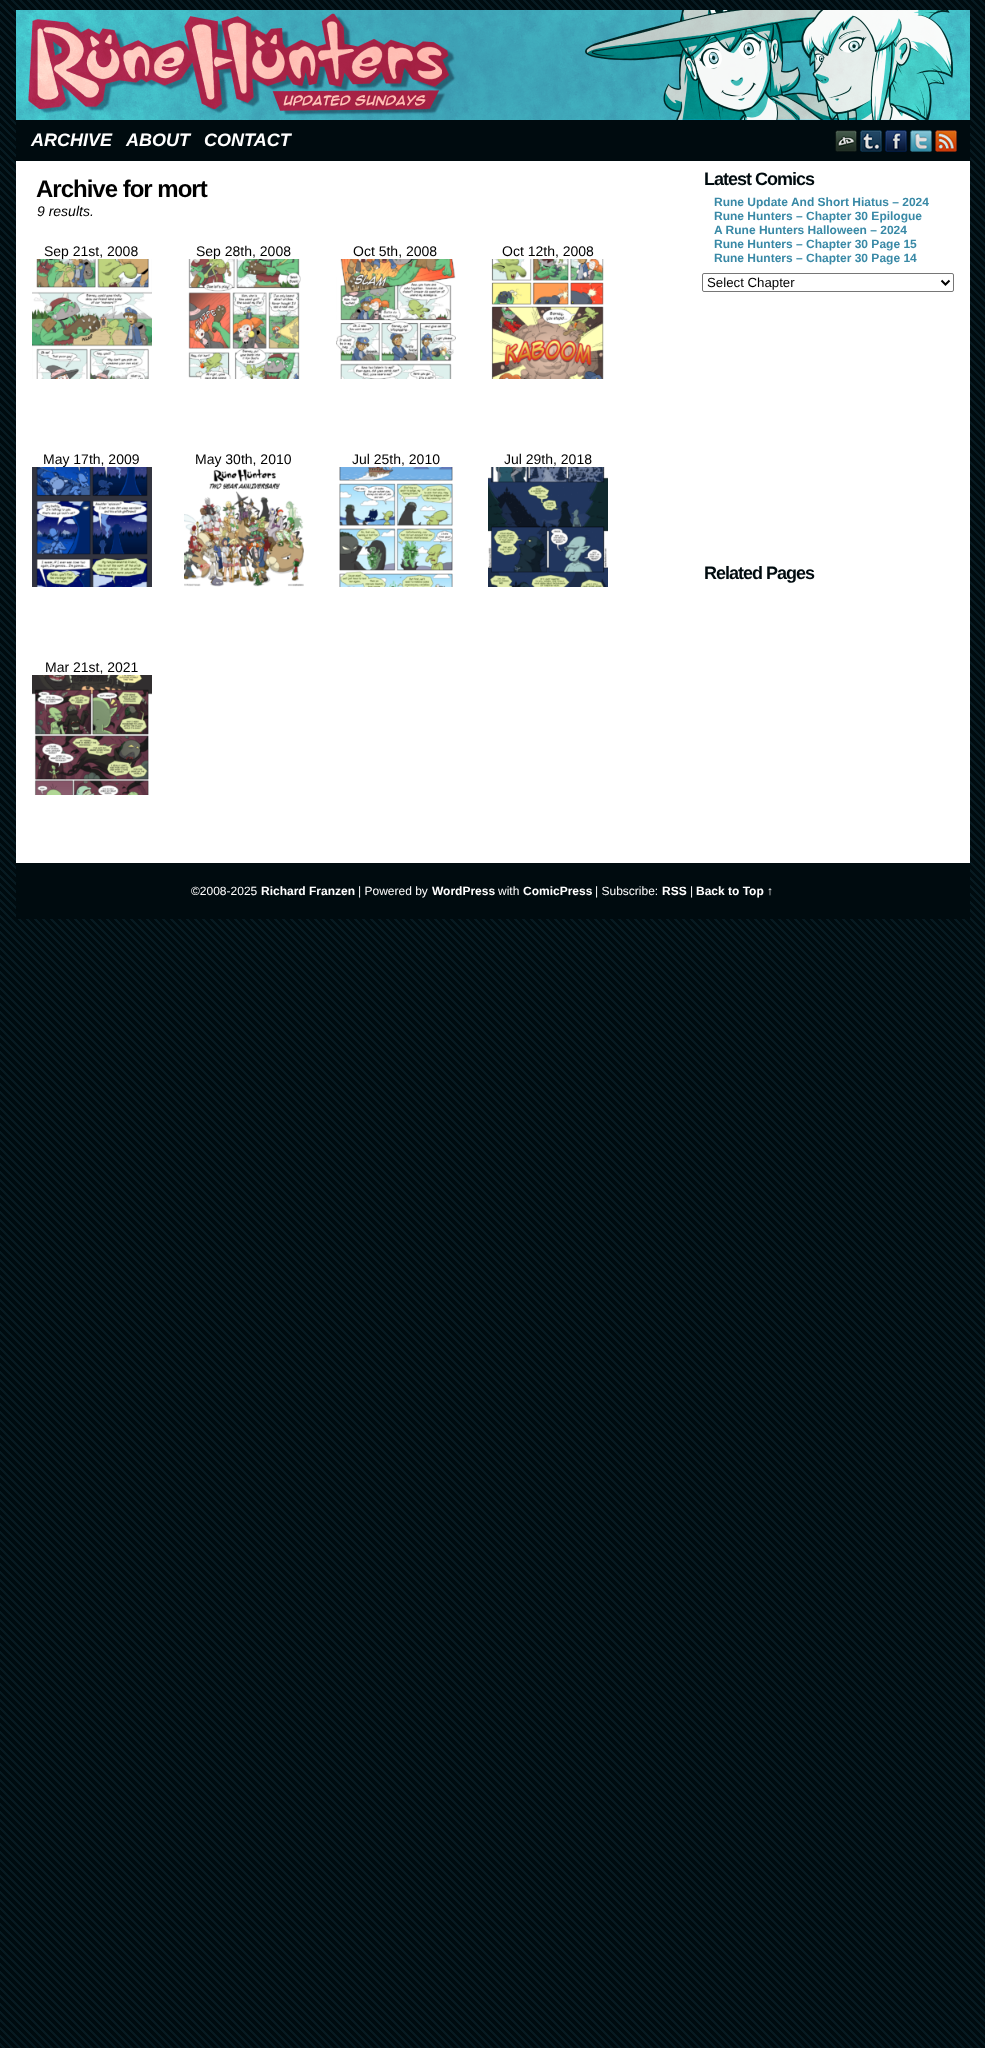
<svg xmlns="http://www.w3.org/2000/svg" width="985" height="2048" viewBox="0 0 985 2048">
  <rect width="100%" height="100%" fill="#fff"/>
  <image x="0" y="0" width="985" height="2048" href="img/1.png"/>
  <path d="M16 161h954v702H16z" fill="#fff"/>
  <image x="16" y="10" width="954" height="110" href="img/2.png"/>
  <path d="M16 120h954v41H16z" fill="#000b0f"/>
  <image x="835" y="130" width="22" height="22" href="img/3.png"/>
  <image x="860" y="130" width="22" height="22" href="img/4.png"/>
  <image x="885" y="130" width="22" height="22" href="img/5.png"/>
  <image x="910" y="130" width="22" height="22" href="img/6.png"/>
  <image x="935" y="130" width="22" height="22" href="img/7.png"/>
  <image x="32" y="259" width="120" height="120" href="img/8.png"/>
  <image x="188" y="259" width="113" height="120" href="img/9.png"/>
  <image x="336" y="259" width="120" height="120" href="img/10.png"/>
  <image x="491" y="259" width="113" height="120" href="img/11.png"/>
  <image x="32" y="467" width="120" height="120" href="img/12.png"/>
  <image x="184" y="468" width="120" height="119" href="img/13.png"/>
  <image x="339" y="467" width="114" height="120" href="img/14.png"/>
  <image x="488" y="467" width="120" height="120" href="img/15.png"/>
  <image x="32" y="675" width="120" height="120" href="img/16.png"/>
  <rect x="702.5" y="273.5" width="251" height="18" rx="1.5" fill="none" stroke="#767676"/>
  <path d="M941.5 280.5L945.5 284.5L949.5 280.5" fill="none" stroke="#000" stroke-width="2"/>
  <path d="M16 863h954v56H16z" fill="#000b0f"/>
  <g font-family="Liberation Sans" font-size="18" font-weight="bold" font-style="italic" fill="#fff">
    <text x="31" y="146">ARCHIVE</text>
    <text x="126" y="146">ABOUT</text>
    <text x="204" y="146">CONTACT</text>
  </g>
  <text x="36" y="197" font-family="Liberation Sans" font-size="24" font-weight="bold" letter-spacing="-1" fill="#000">Archive for mort</text>
  <text x="37" y="216" font-family="Liberation Sans" font-size="14" font-style="italic" fill="#000">9 results.</text>
  <g font-family="Liberation Sans" font-size="14" fill="#000">
    <text x="44" y="256">Sep 21st, 2008</text>
    <text x="196" y="256">Sep 28th, 2008</text>
    <text x="353" y="256">Oct 5th, 2008</text>
    <text x="502" y="256">Oct 12th, 2008</text>
    <text x="43" y="464">May 17th, 2009</text>
    <text x="195" y="464">May 30th, 2010</text>
    <text x="352" y="464">Jul 25th, 2010</text>
    <text x="504" y="464">Jul 29th, 2018</text>
    <text x="45" y="672">Mar 21st, 2021</text>
  </g>
  <text x="704" y="185" font-family="Liberation Sans" font-size="18" font-weight="bold" letter-spacing="-1" fill="#000b0f">Latest Comics</text>
  <g font-family="Liberation Sans" font-size="12" font-weight="bold" fill="#3989a6">
    <text x="714" y="206">Rune Update And Short Hiatus – 2024</text>
    <text x="714" y="220">Rune Hunters – Chapter 30 Epilogue</text>
    <text x="714" y="234">A Rune Hunters Halloween – 2024</text>
    <text x="714" y="248">Rune Hunters – Chapter 30 Page 15</text>
    <text x="714" y="262">Rune Hunters – Chapter 30 Page 14</text>
  </g>
  <text x="707" y="287" font-family="Liberation Sans" font-size="13.25" fill="#000">Select Chapter</text>
  <text x="704" y="579" font-family="Liberation Sans" font-size="18" font-weight="bold" letter-spacing="-1" fill="#000b0f">Related Pages</text>
  <text x="191" y="895" font-family="Liberation Sans" font-size="12" fill="#fff">©2008-2025</text>
  <text x="261" y="895" font-family="Liberation Sans" font-size="12" font-weight="bold" fill="#fff">Richard Franzen</text>
  <text x="358" y="895" font-family="Liberation Sans" font-size="12" fill="#fff">| Powered by</text>
  <text x="432" y="895" font-family="Liberation Sans" font-size="12" font-weight="bold" fill="#fff">WordPress</text>
  <text x="498" y="895" font-family="Liberation Sans" font-size="12" fill="#fff">with</text>
  <text x="523" y="895" font-family="Liberation Sans" font-size="12" font-weight="bold" fill="#fff">ComicPress</text>
  <text x="595" y="895" font-family="Liberation Sans" font-size="12" fill="#fff">| Subscribe:</text>
  <text x="662" y="895" font-family="Liberation Sans" font-size="12" font-weight="bold" fill="#fff">RSS</text>
  <text x="690" y="895" font-family="Liberation Sans" font-size="12" fill="#fff">|</text>
  <text x="696" y="895" font-family="Liberation Sans" font-size="12" font-weight="bold" fill="#fff">Back to Top ↑</text>
</svg>
